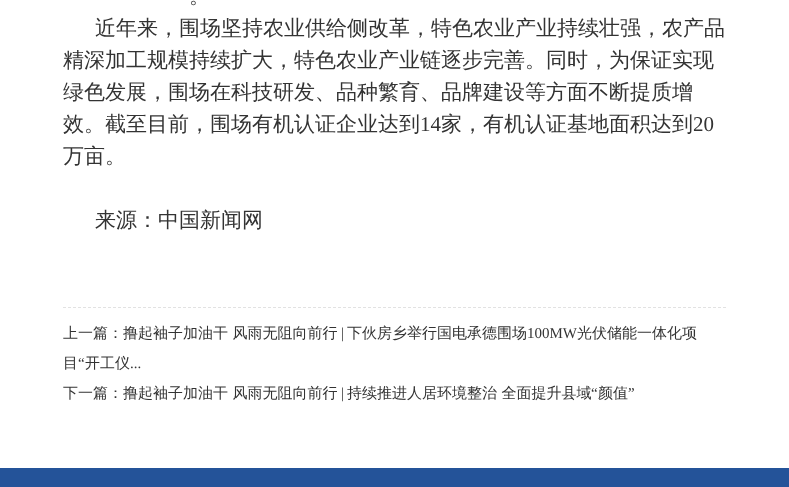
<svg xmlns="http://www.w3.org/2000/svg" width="789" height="487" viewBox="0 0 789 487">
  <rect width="100%" height="100%" fill="#fff"/>
  <path d="M63 307.5H726" fill="none" stroke="#e2e2e2" stroke-dasharray="3 2"/>
  <path d="M0 468h789v19H0z" fill="#245399"/>
  <g font-family="WenQuanYi Zen Hei" font-size="21" font-weight="500" fill="#333">
    <text x="189" y="3">。</text>
    <text x="95" y="35">近年来，围场坚持农业供给侧改革，特色农业产业持续壮强，农产品</text>
    <text x="63" y="67">精深加工规模持续扩大，特色农业产业链逐步完善。同时，为保证实现</text>
    <text x="63" y="99">绿色发展，围场在科技研发、品种繁育、品牌建设等方面不断提质增</text>
    <text x="63" y="131">效。截至目前，围场有机认证企业达到</text>
  </g>
  <text x="420" y="131" font-family="Liberation Serif" font-size="21" fill="#333">14</text>
  <text x="441" y="131" font-family="WenQuanYi Zen Hei" font-size="21" font-weight="500" fill="#333">家，有机认证基地面积达到</text>
  <text x="693" y="131" font-family="Liberation Serif" font-size="21" fill="#333">20</text>
  <g font-family="WenQuanYi Zen Hei" font-size="21" font-weight="500" fill="#333">
    <text x="63" y="163">万亩。</text>
    <text x="95" y="227">来源：中国新闻网</text>
  </g>
  <text x="63" y="338" font-family="WenQuanYi Zen Hei" font-size="15" font-weight="500" fill="#333">上一篇：撸起袖子加油干 风雨无阻向前行</text>
  <text x="341" y="338" font-family="Liberation Serif" font-size="15" fill="#333">|</text>
  <text x="347" y="338" font-family="WenQuanYi Zen Hei" font-size="15" font-weight="500" fill="#333">下伙房乡举行国电承德围场</text>
  <text x="527" y="338" font-family="Liberation Serif" font-size="15" fill="#333">100MW</text>
  <g font-family="WenQuanYi Zen Hei" font-size="15" font-weight="500" fill="#333">
    <text x="577" y="338">光伏储能一体化项</text>
    <text x="63" y="368">目</text>
  </g>
  <text x="78" y="368" font-family="Liberation Serif" font-size="15" fill="#333">“</text>
  <text x="85" y="368" font-family="WenQuanYi Zen Hei" font-size="15" font-weight="500" fill="#333">开工仪</text>
  <text x="130" y="368" font-family="Liberation Serif" font-size="15" fill="#333">...</text>
  <text x="63" y="398" font-family="WenQuanYi Zen Hei" font-size="15" font-weight="500" fill="#333">下一篇：撸起袖子加油干 风雨无阻向前行</text>
  <text x="341" y="398" font-family="Liberation Serif" font-size="15" fill="#333">|</text>
  <text x="347" y="398" font-family="WenQuanYi Zen Hei" font-size="15" font-weight="500" fill="#333">持续推进人居环境整治 全面提升县域</text>
  <text x="591" y="398" font-family="Liberation Serif" font-size="15" fill="#333">“</text>
  <text x="598" y="398" font-family="WenQuanYi Zen Hei" font-size="15" font-weight="500" fill="#333">颜值</text>
  <text x="628" y="398" font-family="Liberation Serif" font-size="15" fill="#333">”</text>
</svg>
